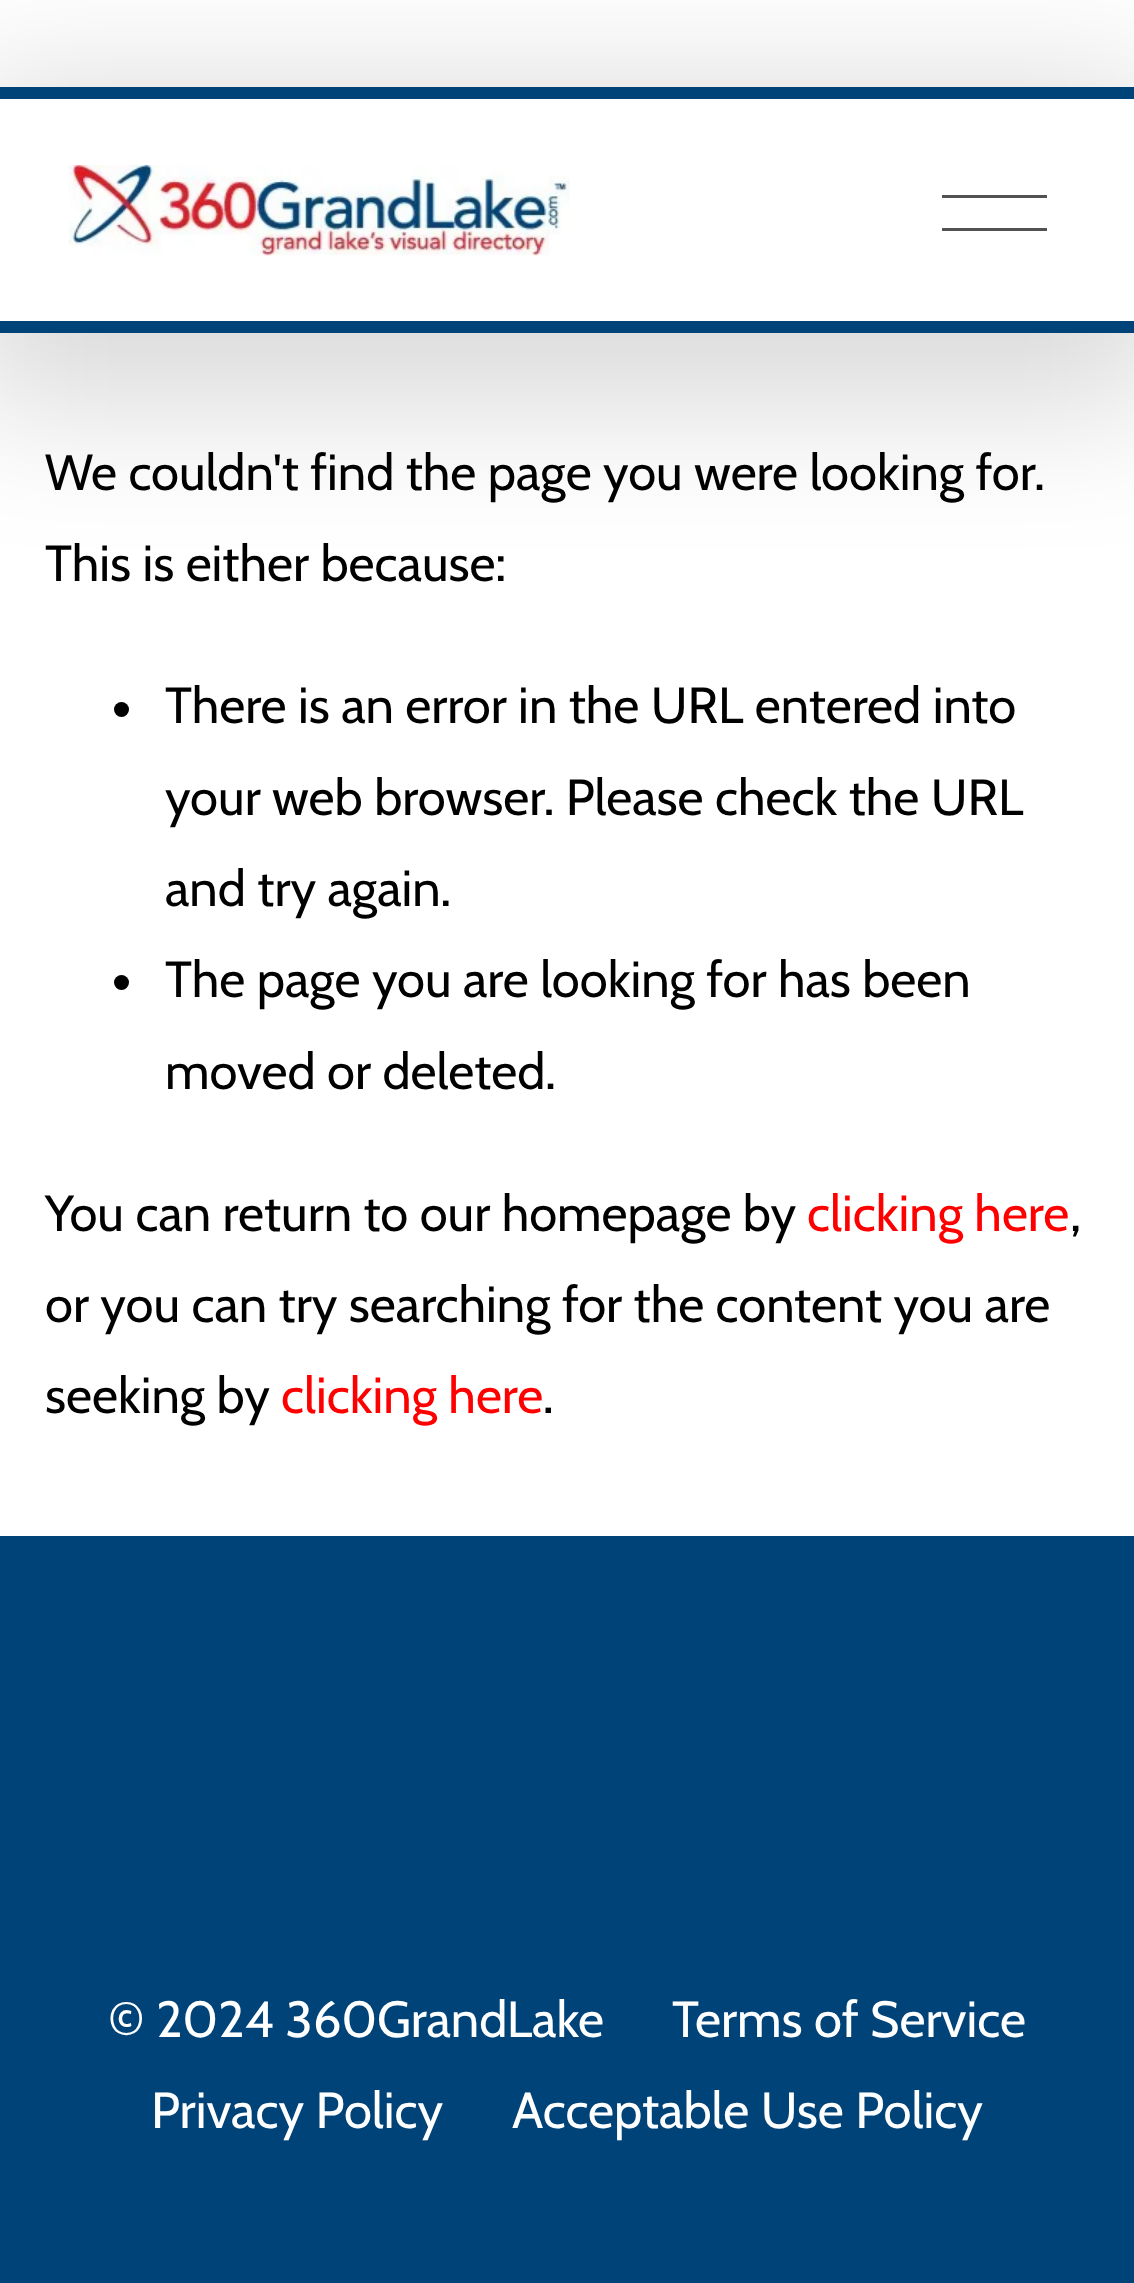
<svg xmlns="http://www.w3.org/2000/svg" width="1134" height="2283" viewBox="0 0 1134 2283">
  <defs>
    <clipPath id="clip1"><path d="M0 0H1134V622H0ZM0 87H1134V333H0Z" clip-rule="evenodd"/></clipPath>
  </defs>
  <rect width="100%" height="100%" fill="#fff"/>
  <g clip-path="url(#clip1)">
    <path d="M-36 87h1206v318H-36z" fill="#00000026" filter="blur(72px)"/>
  </g>
  <path d="M0 87h1134v12H0z" fill="#004378"/>
  <path d="M0 321h1134v12H0z" fill="#004378"/>
  <image x="68" y="165" width="502" height="91" href="img/1.png"/>
  <path d="M942 195h105v3H942z" fill="#535250"/>
  <path d="M942 228h105v3H942z" fill="#535250"/>
  <circle cx="121.5" cy="709.5" r="7.5" fill="#000"/>
  <circle cx="121.5" cy="982.5" r="7.5" fill="#000"/>
  <path d="M0 1536h1134v747H0z" fill="#004378"/>
  <g font-family="Cabin" font-size="50.75" fill="#000">
    <text x="45" y="490">We couldn't find the page you were looking for.</text>
    <text x="45" y="581">This is either because:</text>
    <text x="165" y="723">There is an error in the URL entered into</text>
    <text x="165" y="815">your web browser. Please check the URL</text>
    <text x="165" y="906">and try again.</text>
    <text x="165" y="997">The page you are looking for has been</text>
    <text x="165" y="1089">moved or deleted.</text>
    <text x="45" y="1231">You can return to our homepage by</text>
  </g>
  <text x="807" y="1231" font-family="Cabin" font-size="50.75" fill="#f00">clicking here</text>
  <g font-family="Cabin" font-size="50.75" fill="#000">
    <text x="1070" y="1231">,</text>
    <text x="45" y="1322">or you can try searching for the content you are</text>
    <text x="45" y="1413">seeking by</text>
  </g>
  <text x="281" y="1413" font-family="Cabin" font-size="50.75" fill="#f00">clicking here</text>
  <text x="543" y="1413" font-family="Cabin" font-size="50.75" fill="#000">.</text>
  <g font-family="Cabin" font-size="50.75" fill="#fff">
    <text x="108" y="2037">© 2024 360GrandLake</text>
    <text x="672" y="2037">Terms of Service</text>
    <text x="151" y="2128">Privacy Policy</text>
    <text x="512" y="2128">Acceptable Use Policy</text>
  </g>
</svg>
